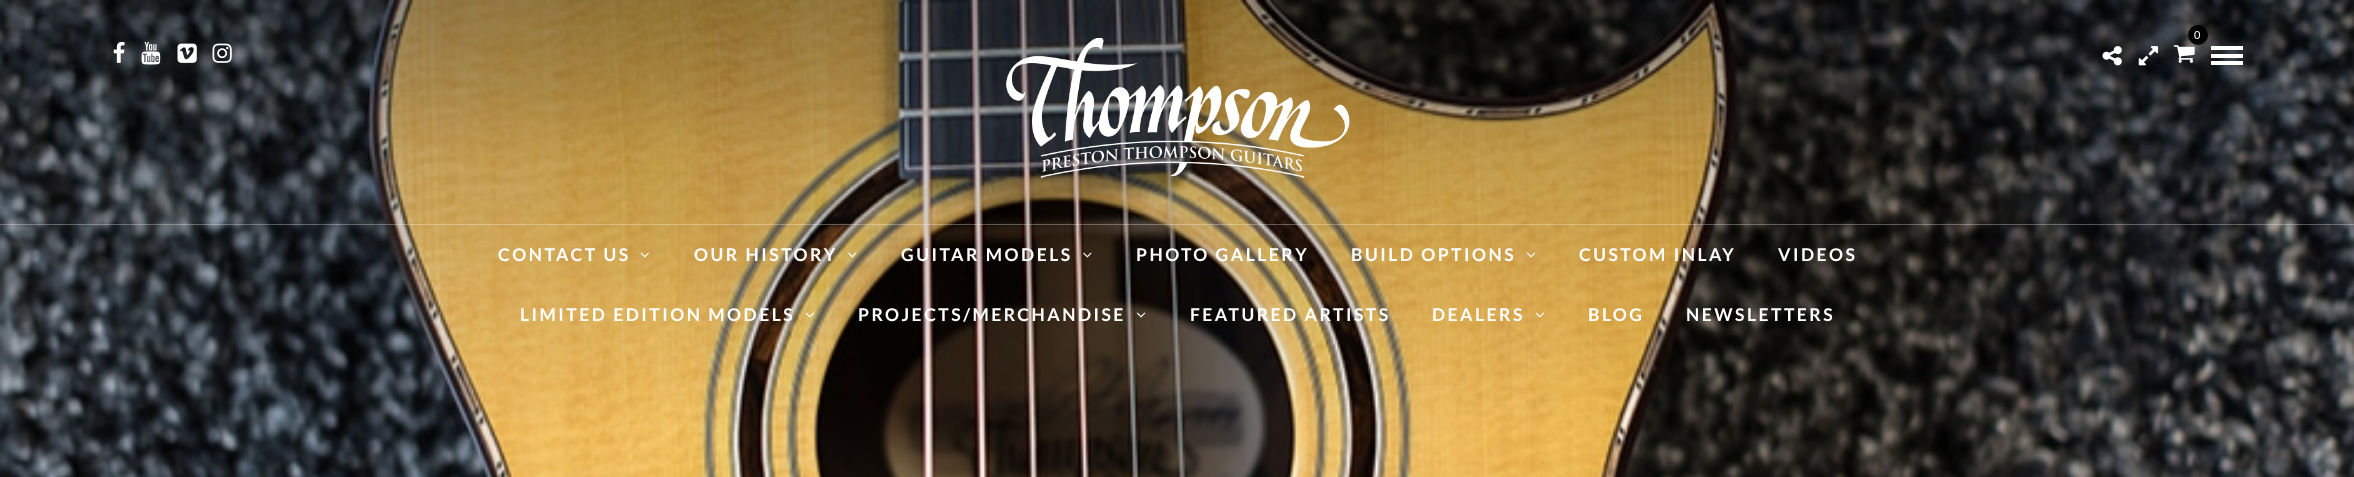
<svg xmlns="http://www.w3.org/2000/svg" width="2354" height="477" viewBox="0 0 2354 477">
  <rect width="100%" height="100%" fill="#fff"/>
  <image x="0" y="0" width="2354" height="477" href="img/1.png"/>
  <path d="M0 224h2354v1H0z" fill="#ffffff4d"/>
  <circle cx="2198" cy="35" r="10" fill="#000"/>
  <image x="2173" y="45" width="22" height="18" href="img/2.png"/>
  <image x="2102" y="46" width="20" height="20" href="img/3.png"/>
  <image x="2138" y="46" width="21" height="20" href="img/4.png"/>
  <path d="M2211 46h32v4H2211z" fill="#fff"/>
  <path d="M2211 54h32v4H2211z" fill="#fff"/>
  <path d="M2211 61h32v4H2211z" fill="#fff"/>
  <image x="113" y="42" width="12" height="21" href="img/5.png"/>
  <image x="141" y="41" width="20" height="24" href="img/6.png"/>
  <image x="177" y="43" width="20" height="20" href="img/7.png"/>
  <image x="212" y="43" width="20" height="20" href="img/8.png"/>
  <image x="1006" y="38" width="344" height="140" href="img/9.png"/>
  <image x="640" y="252" width="9" height="6" href="img/10.png"/>
  <image x="848" y="252" width="9" height="6" href="img/11.png"/>
  <image x="1083" y="252" width="9" height="6" href="img/12.png"/>
  <image x="1526" y="252" width="10" height="6" href="img/13.png"/>
  <image x="805" y="312" width="9" height="6" href="img/14.png"/>
  <image x="1136" y="312" width="10" height="6" href="img/15.png"/>
  <image x="1535" y="312" width="9" height="6" href="img/16.png"/>
  <text x="2194" y="39" font-family="Lato" font-size="11" fill="#fff">0</text>
  <g font-family="Lato" font-size="17.5" font-weight="bold" letter-spacing="2.5" fill="#fff">
    <text x="498" y="261">CONTACT US</text>
    <text x="694" y="261">OUR HISTORY</text>
    <text x="901" y="261">GUITAR MODELS</text>
    <text x="1136" y="261">PHOTO GALLERY</text>
    <text x="1351" y="261">BUILD OPTIONS</text>
    <text x="1579" y="261">CUSTOM INLAY</text>
    <text x="1778" y="261">VIDEOS</text>
    <text x="520" y="321">LIMITED EDITION MODELS</text>
    <text x="858" y="321">PROJECTS/MERCHANDISE</text>
    <text x="1190" y="321">FEATURED ARTISTS</text>
    <text x="1432" y="321">DEALERS</text>
    <text x="1588" y="321">BLOG</text>
    <text x="1686" y="321">NEWSLETTERS</text>
  </g>
</svg>
